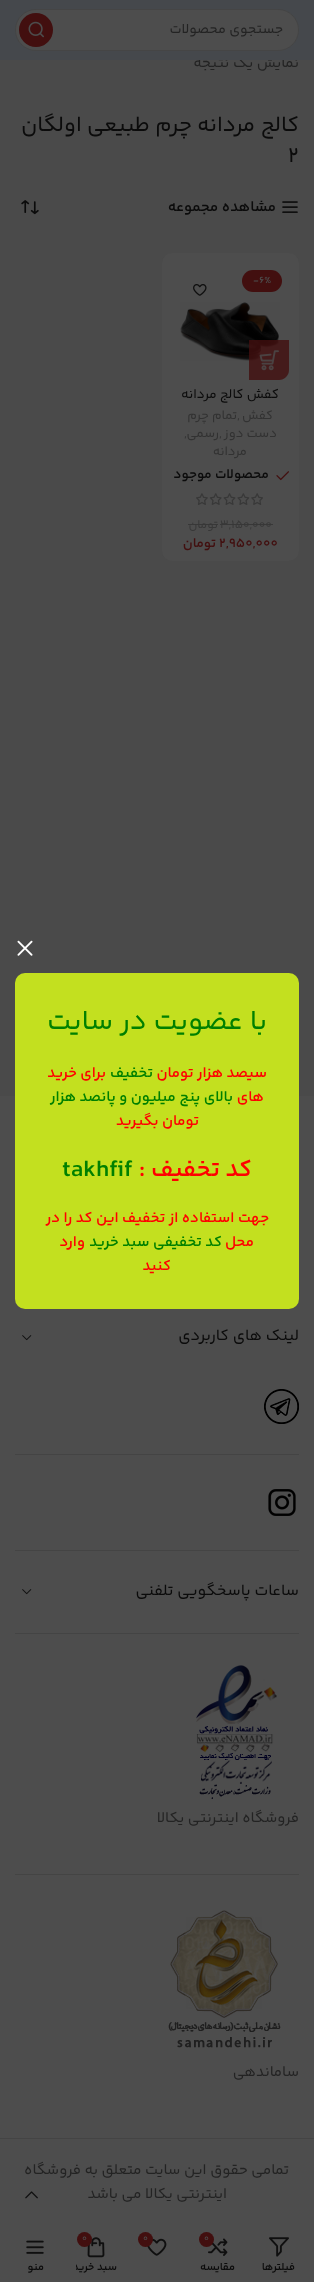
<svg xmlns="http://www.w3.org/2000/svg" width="314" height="2282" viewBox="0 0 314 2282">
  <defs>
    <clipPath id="clip1"><path d="M76 2261h41v13H76z"/></clipPath>
  </defs>
  <rect width="100%" height="100%" fill="#4d4d4d"/>
  <path d="M0 60h314v1036H0z" fill="#4a4a4a"/>
  <image x="282" y="201" width="16" height="12" href="img/2.png"/>
  <image x="21" y="200" width="18" height="15" href="img/3.png"/>
  <rect x="162" y="253" width="137" height="308" rx="10" fill="#4d4d4d"/>
  <rect x="242" y="270" width="40" height="22" rx="11" fill="#420f0f"/>
  <image x="180" y="302" width="100" height="59" href="img/4.png"/>
  <image x="193" y="284" width="14" height="12" href="img/5.png"/>
  <path d="M249 340H289V370C289 375.5 284.5 380 279 380H249Z" fill="#420f0fcc"/>
  <image x="259" y="350" width="20" height="21" href="img/6.png"/>
  <image x="276" y="471" width="13" height="10" href="img/7.png"/>
  <image x="196" y="493" width="67" height="12" href="img/8.png"/>
  <path d="M220 524h53v1H220z" fill="#383838"/>
  <path d="M188 524h30v1H188z" fill="#383838"/>
  <image x="22" y="1335" width="10" height="6" href="img/9.png"/>
  <path d="M15 1454h284v1H15z" fill="#444"/>
  <image x="264" y="1389" width="35" height="35" href="img/10.png"/>
  <path d="M15 1550h284v1H15z" fill="#444"/>
  <image x="268" y="1489" width="28" height="27" href="img/11.png"/>
  <path d="M15 1633h284v1H15z" fill="#444"/>
  <image x="22" y="1589" width="10" height="6" href="img/9.png"/>
  <path d="M15 1874h284v1H15z" fill="#444"/>
  <image x="196" y="1665" width="81" height="134" href="img/12.png"/>
  <image x="168" y="1910" width="113" height="138" href="img/13.png"/>
  <path d="M0 2138h314v1H0z" fill="#444"/>
  <image x="17" y="940" width="16" height="16" href="img/14.png"/>
  <rect x="15" y="973" width="284" height="336" rx="10" fill="#c3e01f"/>
  <image x="25" y="2191" width="13" height="8" href="img/15.png"/>
  <image x="269" y="2237" width="20" height="20" href="img/16.png"/>
  <image x="208" y="2238" width="20" height="18" href="img/17.png"/>
  <circle cx="206.5" cy="2239.5" r="7.5" fill="#420f0f"/>
  <image x="147" y="2238" width="20" height="18" href="img/18.png"/>
  <circle cx="145.5" cy="2239.5" r="7.5" fill="#420f0f"/>
  <image x="87" y="2237" width="18" height="21" href="img/19.png"/>
  <circle cx="84.5" cy="2239.5" r="7.5" fill="#420f0f"/>
  <image x="26" y="2240" width="18" height="14" href="img/20.png"/>
  <text x="299" y="67" font-family="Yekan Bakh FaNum" font-size="15" direction="rtl" fill="#232323">نمایش یک نتیجه</text>
  <path d="M0 0h314v60H0z" fill="#45484c"/>
  <rect x="15" y="9" width="284" height="42" rx="21" fill="#4d4d4d"/>
  <rect x="15.5" y="9.5" width="283" height="41" rx="20.5" fill="none" stroke="#0000001a"/>
  <circle cx="36" cy="30" r="17" fill="#420f0f"/>
  <image x="28" y="21" width="16" height="17" href="img/1.png"/>
  <text x="283" y="33" font-family="Yekan Bakh FaNum" font-size="14" direction="rtl" fill="#232323">جستجوی محصولات</text>
  <text x="299" y="131" font-family="Yekan Bakh FaNum" font-size="22" direction="rtl" fill="#0b0b0b">کالج مردانه چرم طبیعی اولگان</text>
  <text x="288" y="162" font-family="Yekan Bakh FaNum" font-size="22" fill="#0b0b0b">2</text>
  <text x="276" y="211" font-family="Yekan Bakh FaNum" font-size="15" font-weight="600" direction="rtl" fill="#0b0b0b">مشاهده مجموعه</text>
  <text x="253" y="283" font-family="Yekan Bakh FaNum" font-size="10" font-weight="600" fill="#4d4d4d">-6%</text>
  <text x="279" y="398" font-family="Yekan Bakh FaNum" font-size="13.5" direction="rtl" fill="#0b0b0b">کفش کالج مردانه</text>
  <text x="273" y="419" font-family="Yekan Bakh FaNum" font-size="13" direction="rtl" fill="#323232">کفش</text>
  <text x="237" y="419" font-family="Yekan Bakh FaNum" font-size="13" fill="#323232">,</text>
  <g font-family="Yekan Bakh FaNum" font-size="13" direction="rtl" fill="#323232">
    <text x="237" y="419">تمام چرم</text>
    <text x="277" y="437">دست دوز</text>
  </g>
  <text x="219" y="437" font-family="Yekan Bakh FaNum" font-size="13" fill="#323232">,</text>
  <text x="219" y="437" font-family="Yekan Bakh FaNum" font-size="13" direction="rtl" fill="#323232">رسمی</text>
  <text x="184" y="437" font-family="Yekan Bakh FaNum" font-size="13" fill="#323232">,</text>
  <text x="247" y="455" font-family="Yekan Bakh FaNum" font-size="13" direction="rtl" fill="#323232">مردانه</text>
  <text x="269" y="478" font-family="Yekan Bakh FaNum" font-size="13.5" font-weight="600" direction="rtl" fill="#0b0b0b">محصولات موجود</text>
  <text x="220" y="528" font-family="Yekan Bakh FaNum" font-size="12" fill="#383838">۳,۱۵۰,۰۰۰</text>
  <text x="218" y="528" font-family="Yekan Bakh FaNum" font-size="12" direction="rtl" fill="#383838">تومان</text>
  <text x="219" y="547" font-family="Yekan Bakh FaNum" font-size="13.5" font-weight="600" fill="#420f0f">۲,۹۵۰,۰۰۰</text>
  <text x="216" y="547" font-family="Yekan Bakh FaNum" font-size="13.5" font-weight="600" direction="rtl" fill="#420f0f">تومان</text>
  <g font-family="Yekan Bakh FaNum" font-size="16" direction="rtl" fill="#0b0b0b">
    <text x="299" y="1340">لینک های کاربردی</text>
    <text x="299" y="1595">ساعات پاسخگویی تلفنی</text>
  </g>
  <g font-family="Yekan Bakh FaNum" font-size="15" direction="rtl" fill="#232323">
    <text x="299" y="1822">فروشگاه اینترنتی یکالا</text>
    <text x="299" y="2076">ساماندهی</text>
    <text x="289" y="2174">تمامی حقوق این سایت متعلق به فروشگاه</text>
    <text x="227" y="2198">اینترنتی یکالا می باشد</text>
  </g>
  <text x="267" y="1029" font-family="Yekan Bakh FaNum" font-size="28" direction="rtl" fill="#008000">با عضویت در سایت</text>
  <text x="267" y="1077" font-family="Yekan Bakh FaNum" font-size="15" font-weight="600" direction="rtl" fill="#f00">سیصد هزار تومان</text>
  <text x="153" y="1077" font-family="Yekan Bakh FaNum" font-size="15" font-weight="600" direction="rtl" fill="#008000">تخفیف</text>
  <g font-family="Yekan Bakh FaNum" font-size="15" font-weight="600" direction="rtl" fill="#f00">
    <text x="106" y="1077">برای خرید</text>
    <text x="264" y="1101">های</text>
  </g>
  <text x="233" y="1101" font-family="Yekan Bakh FaNum" font-size="15" font-weight="600" direction="rtl" fill="#008000">بالای پنج میلیون و پانصد هزار</text>
  <text x="199" y="1125" font-family="Yekan Bakh FaNum" font-size="15" font-weight="600" direction="rtl" fill="#f00">تومان بگیرید</text>
  <text x="252" y="1176" font-family="Yekan Bakh FaNum" font-size="24" font-weight="600" direction="rtl" fill="#f00">کد تخفیف :</text>
  <text x="62" y="1176" font-family="Yekan Bakh FaNum" font-size="24" font-weight="600" fill="#008000">takhfif</text>
  <g font-family="Yekan Bakh FaNum" font-size="15" font-weight="600" direction="rtl" fill="#f00">
    <text x="269" y="1222">جهت استفاده از تخفیف این کد را در</text>
    <text x="254" y="1246">محل</text>
  </g>
  <text x="222" y="1246" font-family="Yekan Bakh FaNum" font-size="15" font-weight="600" direction="rtl" fill="#008000">کد تخفیفی سبد خرید</text>
  <g font-family="Yekan Bakh FaNum" font-size="15" font-weight="600" direction="rtl" fill="#f00">
    <text x="85" y="1246">وارد</text>
    <text x="171" y="1270">کنید</text>
  </g>
  <text x="295" y="2270" font-family="Yekan Bakh FaNum" font-size="11" font-weight="600" direction="rtl" fill="#0b0b0b">فیلترها</text>
  <text x="204" y="2241" font-family="Yekan Bakh FaNum" font-size="9" fill="#4d4d4d">0</text>
  <text x="235" y="2270" font-family="Yekan Bakh FaNum" font-size="11" font-weight="600" direction="rtl" fill="#0b0b0b">مقایسه</text>
  <g font-family="Yekan Bakh FaNum" font-size="9" fill="#4d4d4d">
    <text x="143" y="2241">0</text>
    <text x="82" y="2241">0</text>
  </g>
  <g clip-path="url(#clip1)">
    <text x="117" y="2270" font-family="Yekan Bakh FaNum" font-size="11" font-weight="600" direction="rtl" fill="#0b0b0b">سبد خرید</text>
  </g>
  <text x="44" y="2270" font-family="Yekan Bakh FaNum" font-size="11" font-weight="600" direction="rtl" fill="#0b0b0b">منو</text>
</svg>
